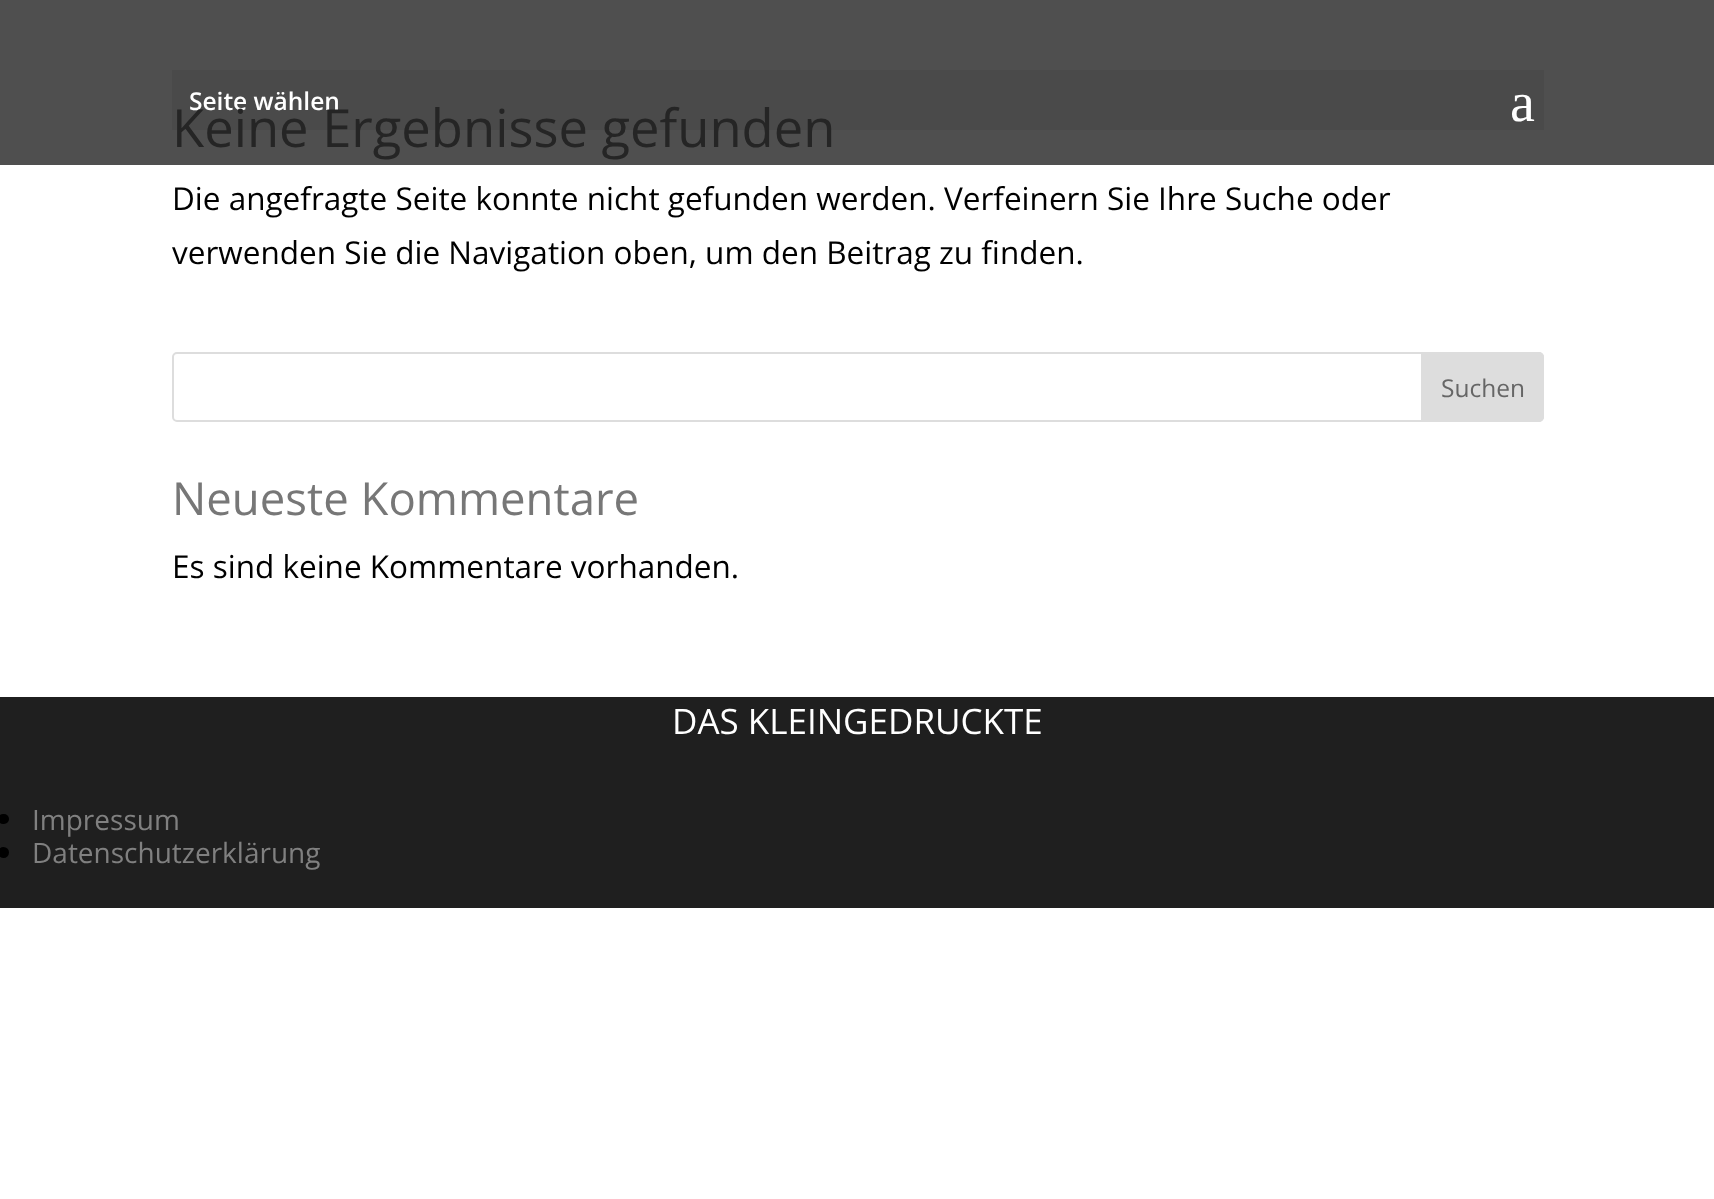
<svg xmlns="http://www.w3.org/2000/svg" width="1714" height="1199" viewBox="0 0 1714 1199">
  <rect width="100%" height="100%" fill="#fff"/>
  <path d="M0 0h1714v165H0z" fill="#4f4f4f"/>
  <path d="M172 70h1372v60H172z" fill="#0000000d"/>
  <rect x="173" y="353" width="1370" height="68" rx="4" fill="none" stroke="#ddd" stroke-width="2"/>
  <path d="M1422 353H1539C1541 353 1543 355 1543 357V417C1543 419 1541 421 1539 421H1422Z" fill="#ddd" stroke="#ddd" stroke-width="2"/>
  <path d="M0 697h1714v211H0z" fill="#1f1f1f"/>
  <rect x="-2" y="814" width="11" height="10" rx="5" fill="#000"/>
  <circle cx="3.5" cy="852.5" r="5.5" fill="#000"/>
  <text x="189" y="110" font-family="Open Sans" font-size="24.5" font-weight="600" fill="#fff">Seite wählen</text>
  <text x="1510" y="121" font-family="Liberation Serif" font-size="56" fill="#fff">a</text>
  <text x="172" y="147" font-family="Open Sans" font-size="52.5" fill="#252525">Keine Ergebnisse gefunden</text>
  <g font-family="Open Sans" font-size="31.5" fill="#000">
    <text x="172" y="210">Die angefragte Seite konnte nicht gefunden werden. Verfeinern Sie Ihre Suche oder</text>
    <text x="172" y="264">verwenden Sie die Navigation oben, um den Beitrag zu finden.</text>
  </g>
  <text x="1441" y="397" font-family="Open Sans" font-size="24.5" fill="#666">Suchen</text>
  <text x="172" y="515" font-family="Open Sans" font-size="45.5" fill="#777">Neueste Kommentare</text>
  <text x="172" y="578" font-family="Open Sans" font-size="31.5" fill="#000">Es sind keine Kommentare vorhanden.</text>
  <text x="672" y="734" font-family="Open Sans" font-size="35" fill="#fff">DAS KLEINGEDRUCKTE</text>
  <g font-family="Open Sans" font-size="28" fill="#808080">
    <text x="32" y="830">Impressum</text>
    <text x="32" y="863">Datenschutzerklärung</text>
  </g>
</svg>
